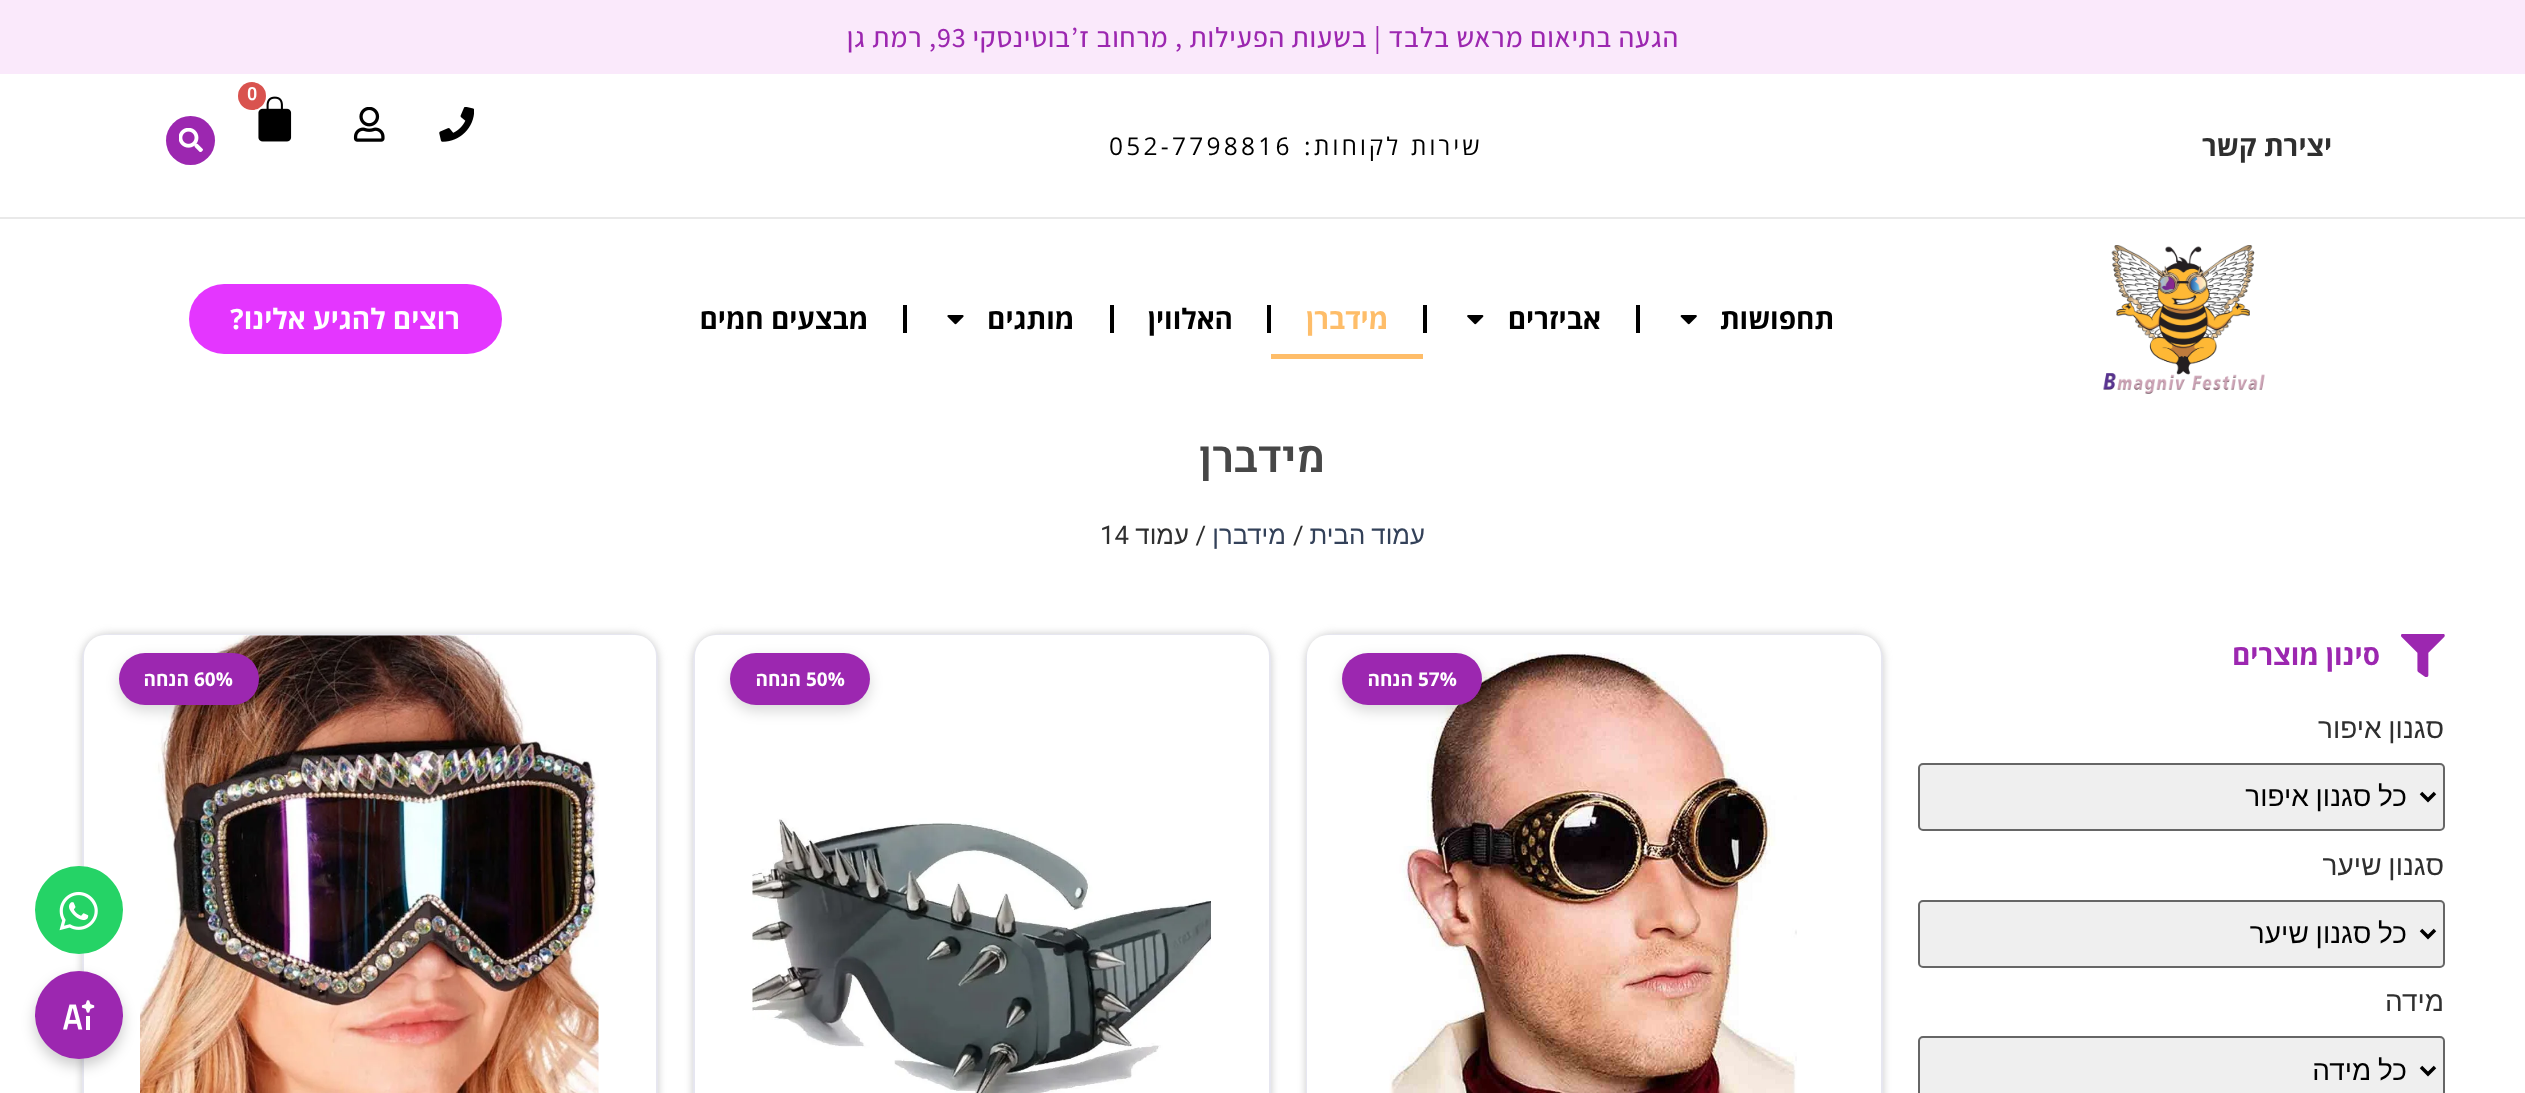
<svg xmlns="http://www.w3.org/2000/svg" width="2525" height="1093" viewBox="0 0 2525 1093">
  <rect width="100%" height="100%" fill="#fff"/>
  <path d="M0 0h2525v74H0z" fill="#fae9fb"/>
  <path d="M0 217h2525v2H0z" fill="#e9e9e9"/>
  <image x="258" y="96" width="34" height="46" href="img/1.png"/>
  <circle cx="252" cy="96" r="14" fill="#d9534f"/>
  <image x="439" y="107" width="35" height="35" href="img/2.png"/>
  <image x="353" y="107" width="32" height="35" href="img/3.png"/>
  <circle cx="190.5" cy="140.5" r="24.5" fill="#9c27b0"/>
  <image x="179" y="128" width="24" height="24" href="img/4.png"/>
  <image x="2103" y="245" width="162" height="149" href="img/5.png"/>
  <image x="1680" y="315" width="17" height="10" href="img/6.png"/>
  <path d="M1636 305h4v28H1636z" fill="#000"/>
  <image x="1467" y="315" width="17" height="10" href="img/7.png"/>
  <path d="M1423 305h4v28H1423z" fill="#000"/>
  <path d="M1271 354h152v5H1271z" fill="#febd69"/>
  <path d="M1267 305h4v28H1267z" fill="#000"/>
  <path d="M1110 305h4v28H1110z" fill="#000"/>
  <image x="947" y="315" width="17" height="10" href="img/8.png"/>
  <path d="M903 305h4v28H903z" fill="#000"/>
  <rect x="189" y="284" width="313" height="70" rx="35" fill="#e436ff"/>
  <image x="2401" y="634" width="44" height="43" href="img/9.png"/>
  <rect x="1919" y="764" width="525" height="66" rx="4" fill="#efefef" stroke="#666" stroke-width="2"/>
  <path d="M2421 793L2428 800L2435 793" fill="none" stroke="#000" stroke-width="3.5"/>
  <rect x="1919" y="901" width="525" height="66" rx="4" fill="#efefef" stroke="#666" stroke-width="2"/>
  <path d="M2421 930L2428 937L2435 930" fill="none" stroke="#000" stroke-width="3.5"/>
  <rect x="1919" y="1037" width="525" height="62" rx="4" fill="#efefef" stroke="#666" stroke-width="2"/>
  <path d="M2421 1067L2428 1074L2435 1067" fill="none" stroke="#000" stroke-width="3.5"/>
  <rect x="1306" y="634" width="577" height="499" rx="26" fill="#95959580" filter="blur(4.5px)"/>
  <rect x="1307" y="635" width="575" height="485" rx="25" fill="none" stroke="#e6e6f0" stroke-width="2"/>
  <rect x="1307" y="635" width="574" height="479" rx="21" fill="#fff"/>
  <image x="1389" y="652" width="408" height="441" href="img/10.png"/>
  <rect x="1342" y="658" width="140" height="53" rx="26.5" fill="#00000026" filter="blur(7px)"/>
  <rect x="1342" y="653" width="140" height="52" rx="26" fill="#9c27b0"/>
  <rect x="693" y="634" width="578" height="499" rx="26" fill="#95959580" filter="blur(4.5px)"/>
  <rect x="694" y="635" width="576" height="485" rx="25" fill="none" stroke="#e6e6f0" stroke-width="2"/>
  <rect x="695" y="635" width="574" height="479" rx="21" fill="#fff"/>
  <image x="752" y="818" width="459" height="275" href="img/11.png"/>
  <rect x="730" y="658" width="140" height="53" rx="26.5" fill="#00000026" filter="blur(7px)"/>
  <rect x="730" y="653" width="140" height="52" rx="26" fill="#9c27b0"/>
  <rect x="82" y="634" width="576" height="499" rx="26" fill="#95959580" filter="blur(4.5px)"/>
  <rect x="83" y="635" width="574" height="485" rx="25" fill="none" stroke="#e6e6f0" stroke-width="2"/>
  <rect x="84" y="635" width="572" height="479" rx="21" fill="#fff"/>
  <image x="140" y="635" width="459" height="458" href="img/12.png"/>
  <rect x="119" y="658" width="140" height="53" rx="26.5" fill="#00000026" filter="blur(7px)"/>
  <rect x="119" y="653" width="140" height="52" rx="26" fill="#9c27b0"/>
  <circle cx="79" cy="910" r="44" fill="#25d366"/>
  <image x="59" y="891" width="39" height="40" href="img/13.png"/>
  <rect x="35" y="978" width="88" height="88" rx="44" fill="#00000033" filter="blur(7px)"/>
  <circle cx="79" cy="1015" r="44" fill="#9c27b0"/>
  <image x="63" y="1000" width="32" height="30" href="img/14.png"/>
  <text x="1679" y="47" font-family="Assistant" font-size="28" font-weight="500" letter-spacing="0.88" direction="rtl" fill="#9c27b0">הגעה בתיאום מראש בלבד | בשעות הפעילות , מרחוב ז’בוטינסקי</text>
  <text x="937" y="47" font-family="Assistant" font-size="28" font-weight="500" letter-spacing="0.88" fill="#9c27b0">93</text>
  <text x="937" y="47" font-family="Assistant" font-size="28" font-weight="500" letter-spacing="0.88" direction="rtl" fill="#9c27b0">, רמת גן</text>
  <text x="247" y="100" font-family="Heebo" font-size="18" font-weight="600" fill="#fff">0</text>
  <text x="2332" y="156" font-family="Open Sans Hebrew" font-size="28" font-weight="bold" direction="rtl" fill="#2f2f2f">יצירת קשר</text>
  <text x="1483" y="155" font-family="Open Sans Hebrew" font-size="24.5" letter-spacing="3.25" direction="rtl" fill="#000">שירות לקוחות:</text>
  <text x="1109" y="155" font-family="Open Sans Hebrew" font-size="24.5" letter-spacing="3.25" fill="#000">052-7798816</text>
  <g font-family="Open Sans Hebrew" font-size="28" font-weight="bold" direction="rtl" fill="#000">
    <text x="1834" y="329">תחפושות</text>
    <text x="1601" y="329">אביזרים</text>
  </g>
  <text x="1388" y="329" font-family="Open Sans Hebrew" font-size="28" font-weight="bold" direction="rtl" fill="#febd69">מידברן</text>
  <g font-family="Open Sans Hebrew" font-size="28" font-weight="bold" direction="rtl" fill="#000">
    <text x="1233" y="329">האלווין</text>
    <text x="1074" y="329">מותגים</text>
    <text x="868" y="329">מבצעים חמים</text>
  </g>
  <text x="460" y="329" font-family="Open Sans Hebrew" font-size="28" font-weight="bold" direction="rtl" fill="#fff">רוצים להגיע אלינו?</text>
  <text x="1325" y="472" font-family="Heebo" font-size="44" font-weight="600" direction="rtl" fill="#474747">מידברן</text>
  <text x="1425" y="544" word-spacing="-1" font-family="Liberation Sans" font-size="25.75" direction="rtl" fill="#334159">עמוד הבית</text>
  <text x="1293" y="544" font-family="Roboto" font-size="25.75" fill="#2f2f2f">/</text>
  <text x="1286" y="544" font-family="Liberation Sans" font-size="25.75" direction="rtl" fill="#334159">מידברן</text>
  <text x="1206" y="544" font-family="Roboto" font-size="25.75" direction="rtl" fill="#2f2f2f">/</text>
  <text x="1189" y="544" font-family="Liberation Sans" font-size="25.75" direction="rtl" fill="#2f2f2f">עמוד</text>
  <text x="1100" y="544" font-family="Roboto" font-size="25.75" fill="#2f2f2f">14</text>
  <text x="2380" y="665" font-family="Open Sans Hebrew" font-size="28" font-weight="bold" direction="rtl" fill="#9c27b0">סינון מוצרים</text>
  <text x="2444" y="738" word-spacing="-1" font-family="Liberation Sans" font-size="28" direction="rtl" fill="#2f2f2f">סגנון איפור</text>
  <text x="2407" y="806" word-spacing="-1" font-family="Liberation Sans" font-size="28" direction="rtl" fill="#000">כל סגנון איפור</text>
  <text x="2444" y="875" word-spacing="-1" font-family="Liberation Sans" font-size="28" direction="rtl" fill="#2f2f2f">סגנון שיער</text>
  <text x="2407" y="943" word-spacing="-1" font-family="Liberation Sans" font-size="28" direction="rtl" fill="#000">כל סגנון שיער</text>
  <text x="2444" y="1011" font-family="Liberation Sans" font-size="28" direction="rtl" fill="#2f2f2f">מידה</text>
  <text x="2407" y="1080" word-spacing="-1" font-family="Liberation Sans" font-size="28" direction="rtl" fill="#000">כל מידה</text>
  <text x="1418" y="686" font-family="Open Sans Hebrew" font-size="19" font-weight="bold" fill="#fff">57%</text>
  <text x="1413" y="686" font-family="Open Sans Hebrew" font-size="19" font-weight="bold" direction="rtl" fill="#fff">הנחה</text>
  <text x="806" y="686" font-family="Open Sans Hebrew" font-size="19" font-weight="bold" fill="#fff">50%</text>
  <text x="801" y="686" font-family="Open Sans Hebrew" font-size="19" font-weight="bold" direction="rtl" fill="#fff">הנחה</text>
  <text x="194" y="686" font-family="Open Sans Hebrew" font-size="19" font-weight="bold" fill="#fff">60%</text>
  <text x="189" y="686" font-family="Open Sans Hebrew" font-size="19" font-weight="bold" direction="rtl" fill="#fff">הנחה</text>
</svg>
